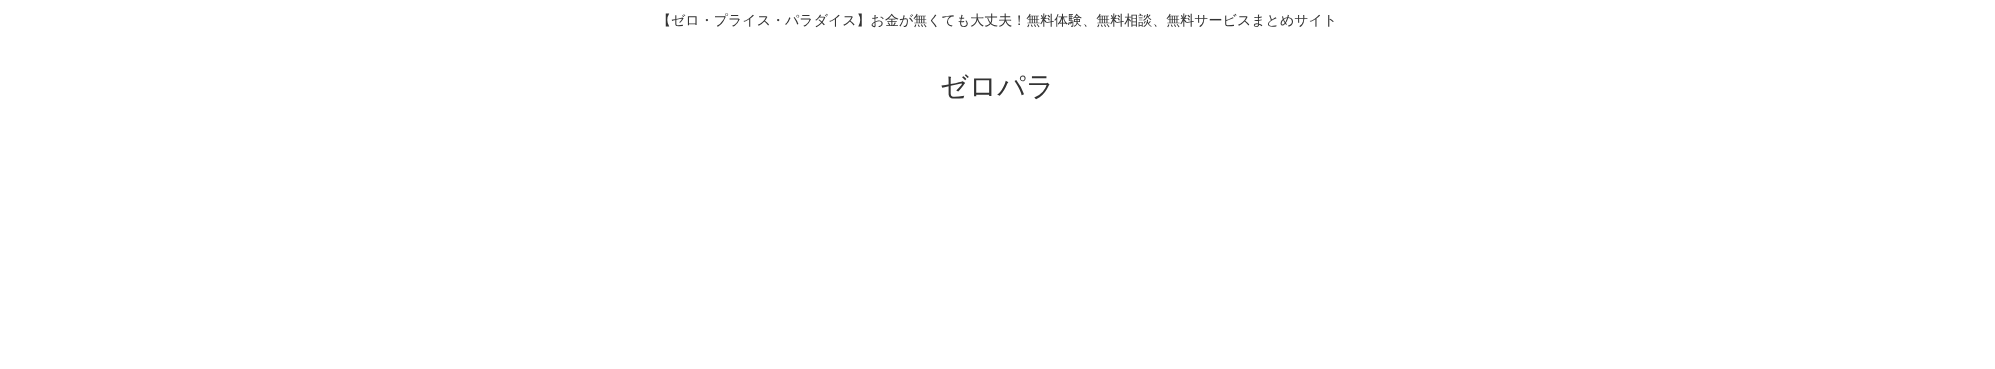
<svg xmlns="http://www.w3.org/2000/svg" width="1995" height="369" viewBox="0 0 1995 369">
  <rect width="100%" height="100%" fill="#fff"/>
  <text x="657" y="25" font-family="WenQuanYi Zen Hei" font-size="14" font-weight="500" fill="#333">【ゼロ・プライス・パラダイス】お金が無くても大丈夫！無料体験、無料相談、無料サービスまとめサイト</text>
  <text x="940" y="96" font-family="WenQuanYi Zen Hei" font-size="28" font-weight="500" fill="#333">ゼロパラ</text>
</svg>
